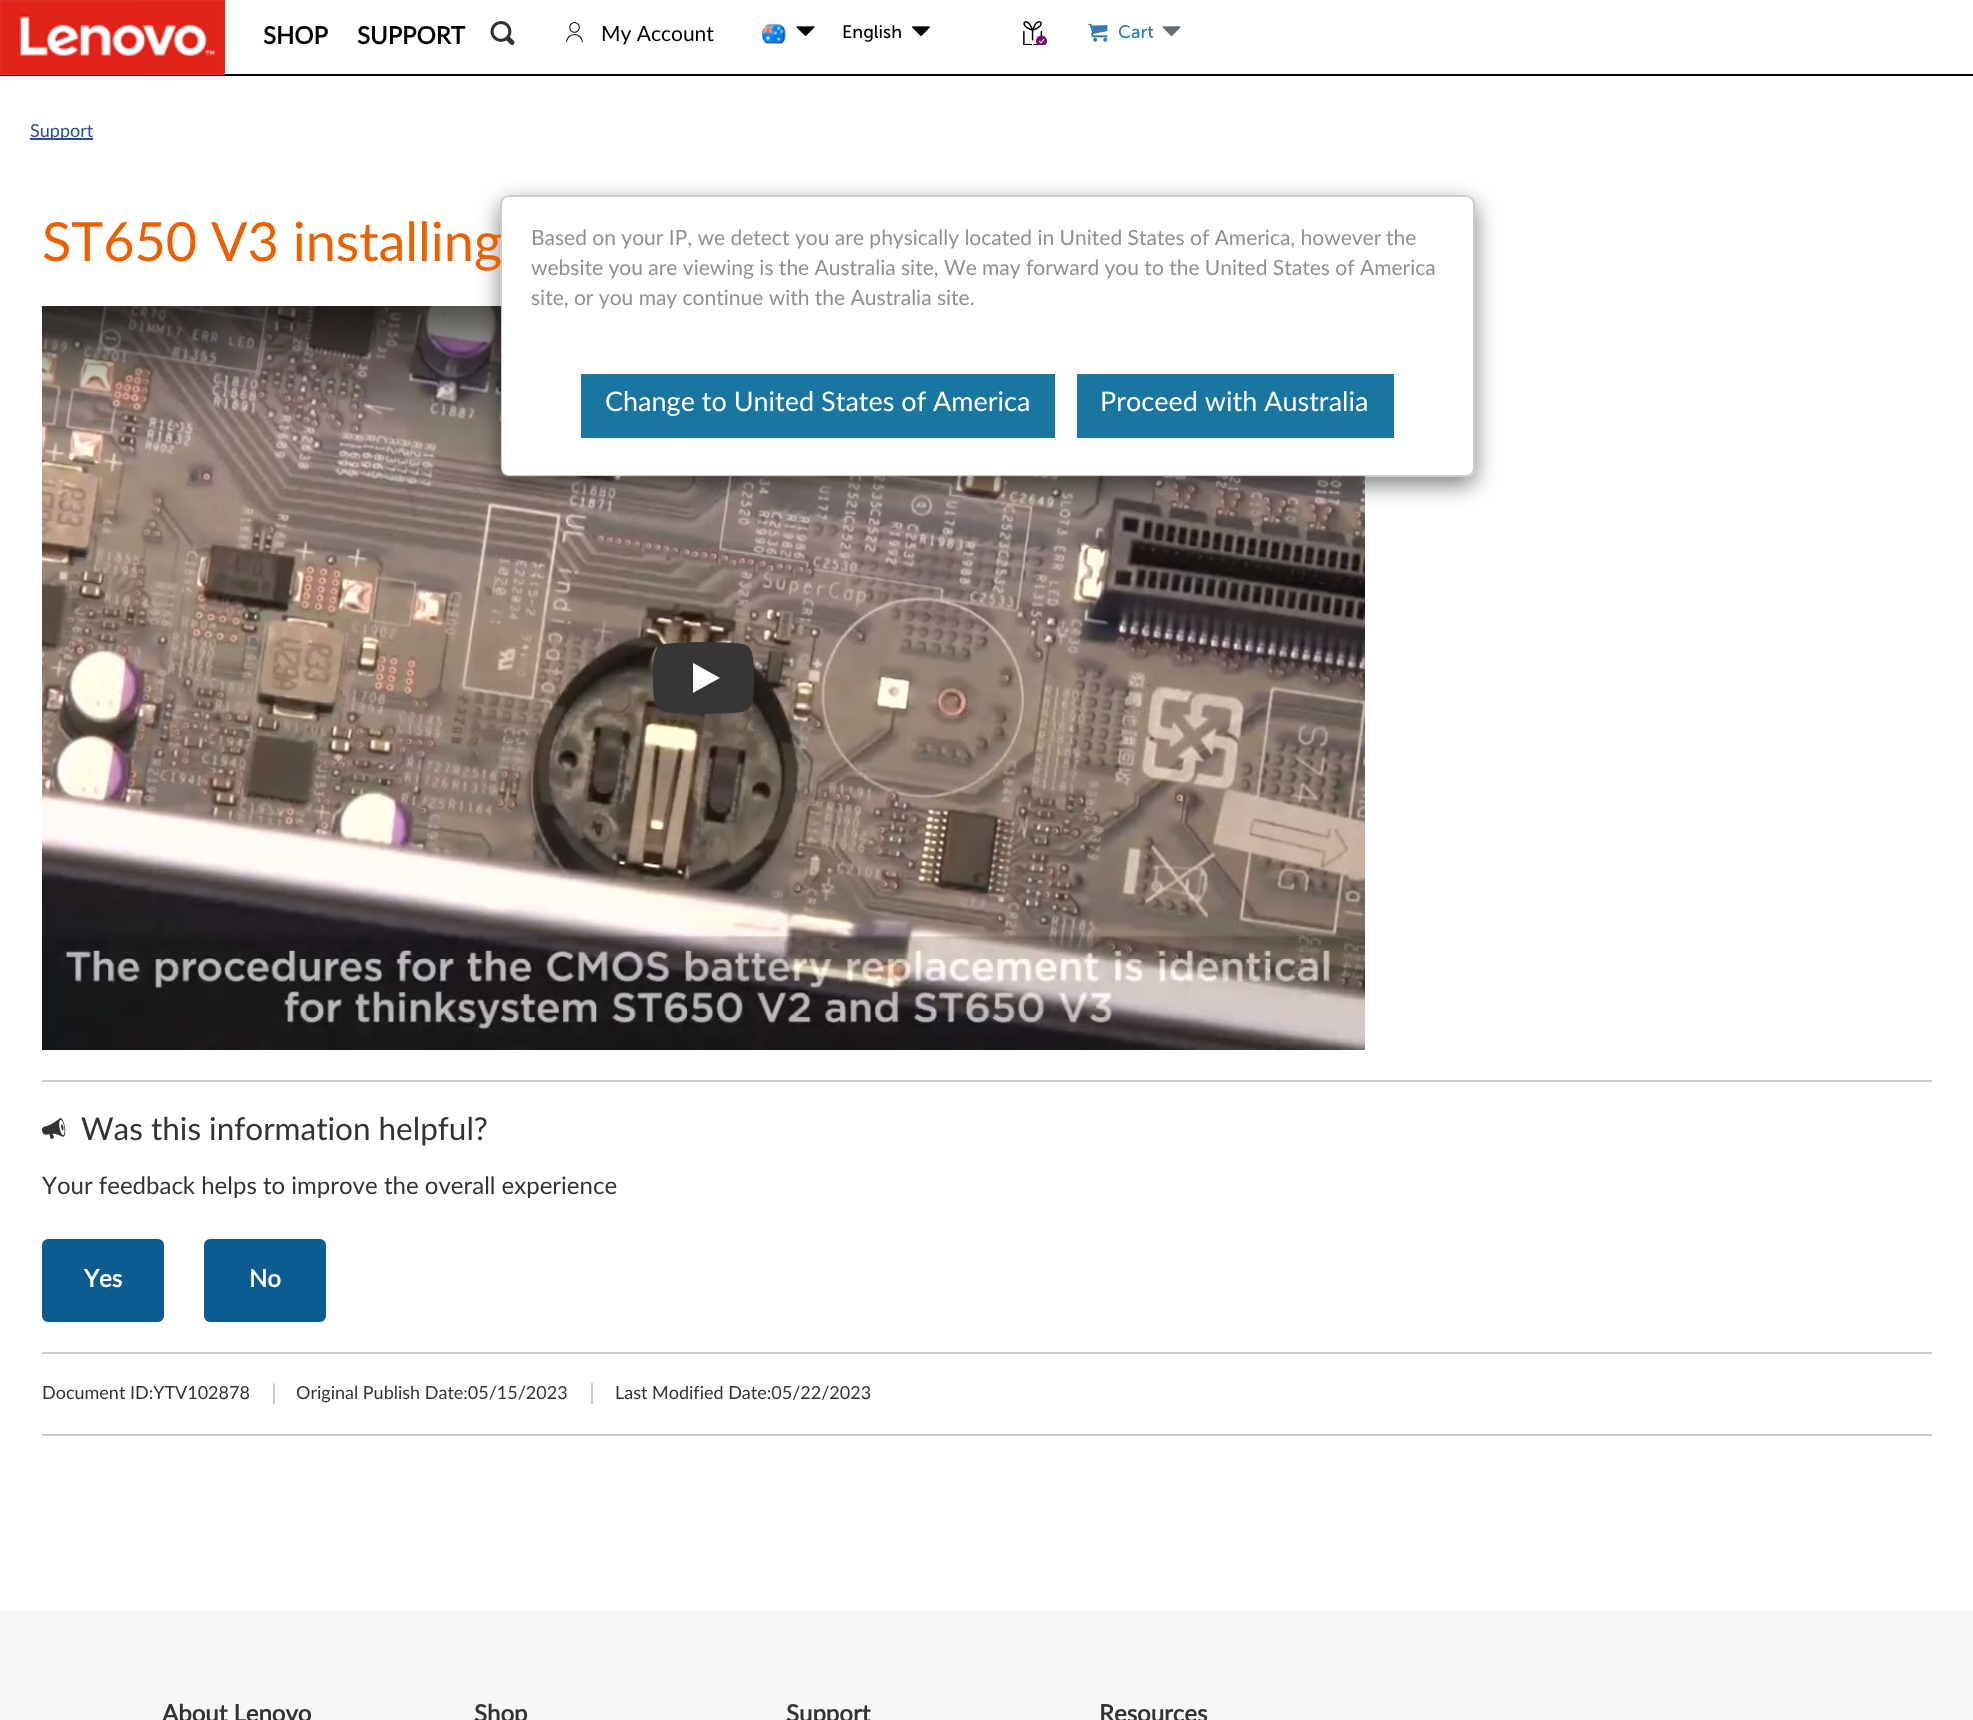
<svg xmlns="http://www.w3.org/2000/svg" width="1973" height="1720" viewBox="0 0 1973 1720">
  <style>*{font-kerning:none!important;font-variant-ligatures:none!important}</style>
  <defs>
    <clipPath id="clip1"><path d="M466 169H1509V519H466ZM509 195H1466C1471 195 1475 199 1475 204V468C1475 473 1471 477 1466 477H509C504 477 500 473 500 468V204C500 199 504 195 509 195Z" clip-rule="evenodd"/></clipPath>
  </defs>
  <rect width="100%" height="100%" fill="#fff"/>
  <path d="M0 74h1973v2H0z" fill="#000"/>
  <image x="0" y="0" width="225" height="75" href="img/1.png"/>
  <image x="490" y="21" width="25" height="24" href="img/2.png"/>
  <image x="762" y="23" width="24" height="21" href="img/3.png"/>
  <image x="796" y="26" width="19" height="10" href="img/4.png"/>
  <image x="912" y="26" width="18" height="10" href="img/5.png"/>
  <image x="1023" y="21" width="24" height="24" href="img/6.png"/>
  <image x="1088" y="23" width="20" height="19" href="img/7.png"/>
  <image x="1162" y="26" width="19" height="10" href="img/8.png"/>
  <path d="M30 138h63v2H30z" fill="#294e95"/>
  <image x="42" y="306" width="1323" height="744" href="img/9.png"/>
  <image x="42" y="306" width="459" height="122" href="img/10.png"/>
  <image x="653" y="642" width="102" height="72" href="img/11.png"/>
  <path d="M42 1080h1890v2H42z" fill="#ccc"/>
  <rect x="43" y="1240" width="120" height="81" rx="5" fill="#0d5c91" stroke="#0d5c91" stroke-width="2"/>
  <rect x="205" y="1240" width="120" height="81" rx="5" fill="#0d5c91" stroke="#0d5c91" stroke-width="2"/>
  <path d="M42 1352h1890v2H42z" fill="#ccc"/>
  <path d="M42 1434h1890v2H42z" fill="#ccc"/>
  <path d="M273 1383h2v21H273z" fill="#ccc"/>
  <path d="M591 1383h2v21H591z" fill="#ccc"/>
  <path d="M0 1611h1973v109H0z" fill="#f7f7f7"/>
  <g clip-path="url(#clip1)">
    <rect x="500" y="203" width="975" height="282" rx="9" fill="#00000080" filter="blur(11px)"/>
  </g>
  <rect x="501" y="197" width="972" height="279" rx="8" fill="#fff"/>
  <g font-family="Lato" font-size="24" font-weight="bold" fill="#000">
    <text x="263" y="44">SHOP</text>
    <text x="357" y="44">SUPPORT</text>
  </g>
  <text x="564" y="41" font-family="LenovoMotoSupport" font-size="21" fill="#000">󡑆</text>
  <text x="601" y="41" font-family="Lato" font-size="21" fill="#000">My Account</text>
  <text x="842" y="38" font-family="Museo Sans" font-size="18" fill="#000">English</text>
  <text x="1118" y="38" font-family="Museo Sans" font-size="18" fill="#337ab7">Cart</text>
  <text x="30" y="137" font-family="Lato" font-size="18" fill="#294e95">Support</text>
  <text x="42" y="261" font-family="Lato" font-size="54" fill="#eb6000">ST650 V3 installing</text>
  <text x="42" y="1140" font-family="LenovoMotoSupport" font-size="24" fill="#333">󡉇</text>
  <text x="81" y="1140" font-family="Lato" font-size="31.5" fill="#333">Was this information helpful?</text>
  <text x="42" y="1194" font-family="Lato" font-size="24" fill="#333">Your feedback helps to improve</text>
  <text x="384" y="1194" font-family="Lato" font-size="24" fill="#333">the overall experience</text>
  <g font-family="Lato" font-size="24" font-weight="bold" fill="#fff">
    <text x="84" y="1287">Yes</text>
    <text x="249" y="1287">No</text>
  </g>
  <g font-family="Lato" font-size="18" fill="#333">
    <text x="42" y="1399">Document ID:YTV102878</text>
    <text x="296" y="1399">Original Publish Date:05/15/2023</text>
    <text x="615" y="1399">Last Modified Date:05/22/2023</text>
  </g>
  <rect x="501" y="196" width="973" height="280" rx="8" fill="none" stroke="#00000033" stroke-width="2"/>
  <g font-family="Lato" font-size="21" fill="#909090">
    <text x="531" y="245">Based on your IP, we detect</text>
    <text x="795" y="245">you are physically located in United States of America, however</text>
    <text x="1386" y="245">the</text>
    <text x="531" y="275">website you are viewing is the Australia site, We</text>
    <text x="982" y="275">may forward you to the United States of</text>
    <text x="1360" y="275">America</text>
    <text x="531" y="305">site, or you may continue with the Australia site.</text>
  </g>
  <path d="M581 374h474v64H581z" fill="#1976a1"/>
  <text x="605" y="411" font-family="Lato" font-size="27" fill="#fff">Change to United States of America</text>
  <path d="M1077 374h317v64H1077z" fill="#1976a1"/>
  <text x="1100" y="411" font-family="Lato" font-size="27" fill="#fff">Proceed with Australia</text>
  <g font-family="Lato" font-size="24" font-weight="bold" fill="#333">
    <text x="162" y="1722">About Lenovo</text>
    <text x="474" y="1722">Shop</text>
    <text x="786" y="1722">Support</text>
    <text x="1099" y="1722">Resources</text>
  </g>
</svg>
